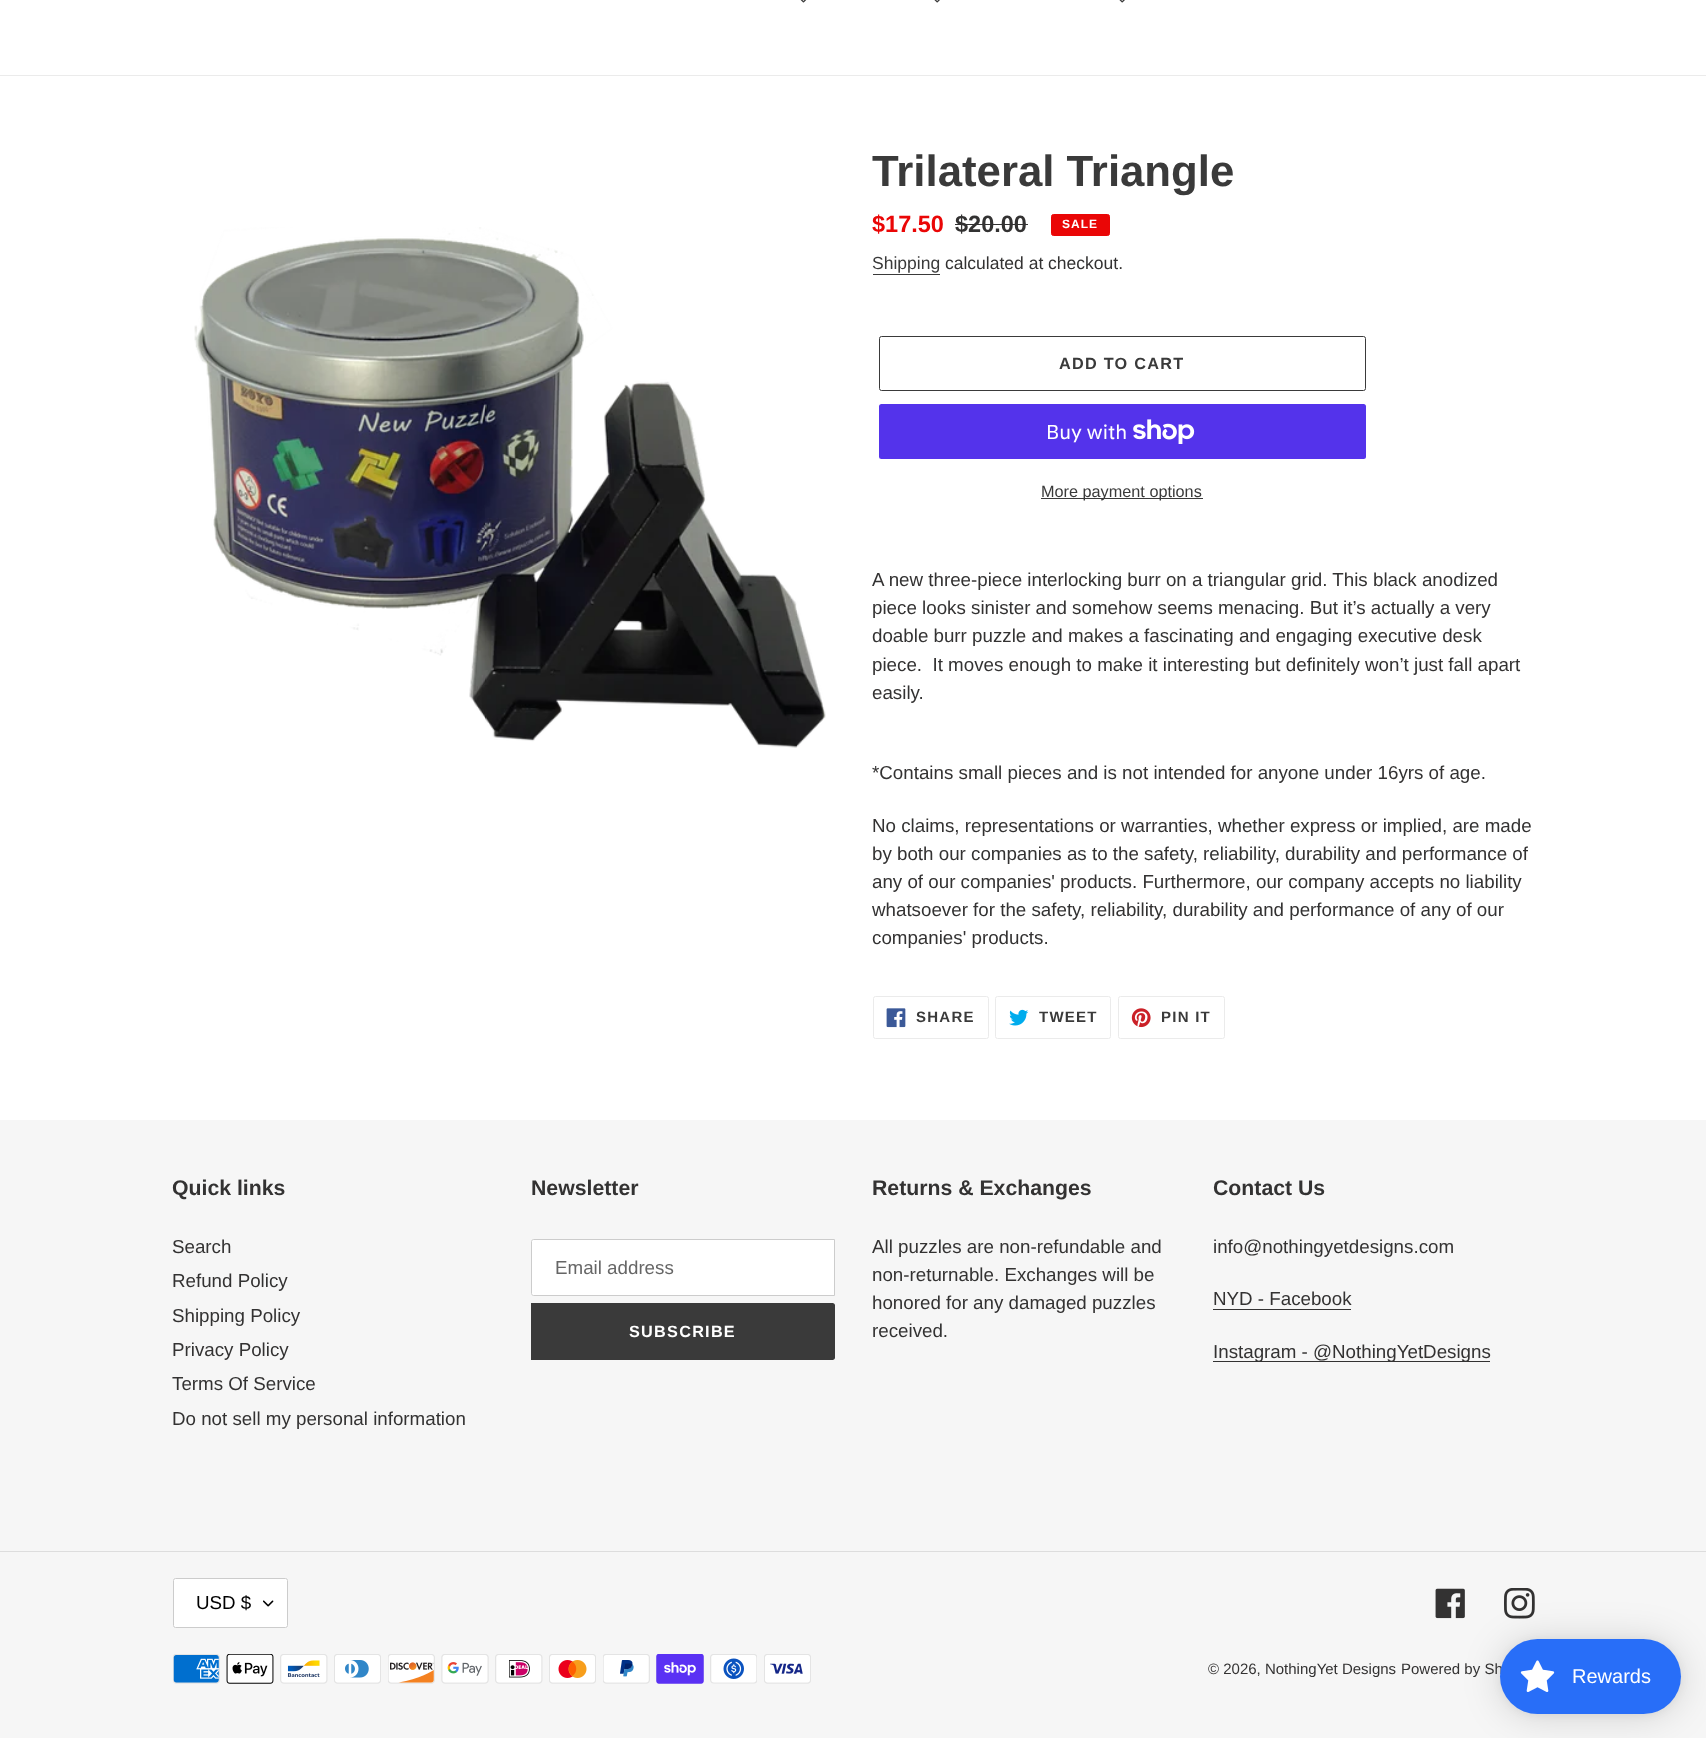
<svg xmlns="http://www.w3.org/2000/svg" width="1706" height="1738" viewBox="0 0 1706 1738">
  <rect width="100%" height="100%" fill="#fff"/>
  <path d="M0 75h1706v1H0z" fill="#ebebeb"/>
  <image x="800" y="0" width="7" height="3" href="img/1.png"/>
  <image x="934" y="0" width="6" height="3" href="img/2.png"/>
  <image x="1119" y="0" width="6" height="3" href="img/2.png"/>
  <image x="194" y="227" width="632" height="521" href="img/3.png"/>
  <path d="M955 224h73v1H955z" fill="#333232"/>
  <rect x="1051.5" y="214.5" width="58" height="21" rx="2" fill="#ea0606" stroke="#ea0606"/>
  <path d="M873 274h67v1H873z" fill="#3a3a3a"/>
  <rect x="879.5" y="336.5" width="486" height="54" rx="2" fill="none" stroke="#3a3a3a"/>
  <rect x="879" y="404" width="487" height="55" rx="2.5" fill="#5433eb"/>
  <image x="1133" y="419" width="62" height="25" href="img/4.png"/>
  <path d="M1041 498h162v1H1041z" fill="#3a3a3a"/>
  <rect x="873.5" y="996.5" width="115" height="42" rx="2" fill="none" stroke="#ebebeb"/>
  <image x="886" y="1008" width="20" height="20" href="img/5.png"/>
  <rect x="995.5" y="996.5" width="115" height="42" rx="2" fill="none" stroke="#ebebeb"/>
  <image x="1009" y="1009" width="20" height="17" href="img/6.png"/>
  <rect x="1118.5" y="996.5" width="106" height="42" rx="2" fill="none" stroke="#ebebeb"/>
  <image x="1131" y="1008" width="20" height="20" href="img/7.png"/>
  <path d="M0 1120h1706v618H0z" fill="#f6f6f6"/>
  <path d="M533.5 1239.5H834.5V1295.5H533.5C532.5 1295.5 531.5 1294.5 531.5 1293.5V1241.5C531.5 1240.5 532.5 1239.5 533.5 1239.5Z" fill="#fff" stroke="#ccc"/>
  <path d="M531 1303H832.5C834 1303 835 1304 835 1305.5V1357.5C835 1359 834 1360 832.5 1360H531Z" fill="#3a3a3a"/>
  <path d="M1213 1309h138v1H1213z" fill="#333232"/>
  <path d="M1213 1361h277v1H1213z" fill="#333232"/>
  <path d="M0 1551h1706v1H0z" fill="#ddd"/>
  <rect x="173" y="1578" width="115" height="50" rx="2.5" fill="#fff"/>
  <image x="263" y="1600" width="11" height="7" href="img/8.png"/>
  <rect x="173.5" y="1578.5" width="114" height="49" rx="2" fill="none" stroke="#ccc"/>
  <image x="1435" y="1588" width="30" height="31" href="img/9.png"/>
  <image x="1504" y="1588" width="31" height="31" href="img/10.png"/>
  <image x="173" y="1654" width="47" height="30" href="img/11.png"/>
  <image x="226" y="1654" width="48" height="30" href="img/12.png"/>
  <image x="280" y="1654" width="48" height="30" href="img/13.png"/>
  <image x="334" y="1654" width="47" height="30" href="img/14.png"/>
  <image x="388" y="1654" width="47" height="30" href="img/15.png"/>
  <image x="441" y="1654" width="48" height="30" href="img/16.png"/>
  <image x="495" y="1654" width="48" height="30" href="img/17.png"/>
  <image x="549" y="1654" width="47" height="30" href="img/18.png"/>
  <image x="603" y="1654" width="47" height="30" href="img/19.png"/>
  <image x="656" y="1654" width="48" height="30" href="img/20.png"/>
  <image x="710" y="1654" width="47" height="30" href="img/21.png"/>
  <image x="764" y="1654" width="47" height="30" href="img/22.png"/>
  <rect x="1500" y="1641" width="181" height="75" rx="37.5" fill="#00000026" filter="blur(19px)"/>
  <rect x="1500" y="1640" width="181" height="75" rx="37.5" fill="#0000000d" filter="blur(4px)"/>
  <text x="872" y="186" font-family="Liberation Sans" font-size="43.75" font-weight="bold" fill="#3a3a3a">Trilateral Triangle</text>
  <text x="872" y="232" font-family="Liberation Sans" font-size="23.5" font-weight="bold" fill="#ea0606">$17.50</text>
  <text x="955" y="232" font-family="Liberation Sans" font-size="23.5" font-weight="bold" fill="#333232">$20.00</text>
  <text x="1062" y="228" font-family="Liberation Sans" font-size="12" font-weight="bold" letter-spacing="1" fill="#fff">SALE</text>
  <text x="872" y="269" font-family="Liberation Sans" font-size="17.5" fill="#3a3a3a">Shipping</text>
  <text x="945" y="269" font-family="Liberation Sans" font-size="17.5" fill="#333232">calculated at checkout.</text>
  <text x="1059" y="369" font-family="Liberation Sans" font-size="16.25" font-weight="bold" letter-spacing="1.25" fill="#3a3a3a">ADD TO CART</text>
  <text x="1046" y="439" font-family="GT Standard" font-size="20" fill="#fff">Buy with</text>
  <text x="1041" y="497" font-family="Liberation Sans" font-size="16.25" fill="#3a3a3a">More payment options</text>
  <g font-family="Liberation Sans" font-size="18.75" fill="#333232">
    <text x="872" y="586">A new three-piece interlocking burr on a triangular grid. This black anodized</text>
    <text x="872" y="614">piece looks sinister and somehow seems menacing. But it’s actually a very</text>
    <text x="872" y="642">doable burr puzzle and makes a fascinating and engaging executive desk</text>
    <text x="872" y="671" xml:space="preserve">piece.  It moves enough to make it interesting but definitely won’t just fall apart</text>
    <text x="872" y="699">easily.</text>
    <text x="872" y="779">*Contains small pieces and is not intended for anyone under 16yrs of age.</text>
    <text x="872" y="832">No claims, representations or warranties, whether express or implied, are made</text>
    <text x="872" y="860">by both our companies as to the safety, reliability, durability and performance of</text>
    <text x="872" y="888">any of our companies' products. Furthermore, our company accepts no liability</text>
    <text x="872" y="916">whatsoever for the safety, reliability, durability and performance of any of our</text>
    <text x="872" y="944">companies' products.</text>
  </g>
  <g font-family="Liberation Sans" font-size="15" font-weight="bold" letter-spacing="1.25" fill="#3a3a3a">
    <text x="916" y="1022">SHARE</text>
    <text x="1039" y="1022">TWEET</text>
    <text x="1161" y="1022">PIN IT</text>
  </g>
  <text x="172" y="1195" font-family="Liberation Sans" font-size="21.25" font-weight="bold" fill="#333232">Quick links</text>
  <g font-family="Liberation Sans" font-size="18.75" fill="#333232">
    <text x="172" y="1253">Search</text>
    <text x="172" y="1287">Refund Policy</text>
    <text x="172" y="1322">Shipping Policy</text>
    <text x="172" y="1356">Privacy Policy</text>
    <text x="172" y="1390">Terms Of Service</text>
    <text x="172" y="1425">Do not sell my personal information</text>
  </g>
  <text x="531" y="1195" font-family="Liberation Sans" font-size="21.25" font-weight="bold" fill="#333232">Newsletter</text>
  <text x="555" y="1274" font-family="Liberation Sans" font-size="18.75" fill="#666">Email address</text>
  <text x="629" y="1337" font-family="Liberation Sans" font-size="16.25" font-weight="bold" letter-spacing="1.25" fill="#fff">SUBSCRIBE</text>
  <text x="872" y="1195" font-family="Liberation Sans" font-size="21.25" font-weight="bold" fill="#333232">Returns &amp; Exchanges</text>
  <g font-family="Liberation Sans" font-size="18.75" fill="#333232">
    <text x="872" y="1253">All puzzles are non-refundable and</text>
    <text x="872" y="1281">non-returnable. Exchanges will be</text>
    <text x="872" y="1309">honored for any damaged puzzles</text>
    <text x="872" y="1337">received.</text>
  </g>
  <text x="1213" y="1195" font-family="Liberation Sans" font-size="21.25" font-weight="bold" fill="#333232">Contact Us</text>
  <g font-family="Liberation Sans" font-size="18.75" fill="#333232">
    <text x="1213" y="1253">info@nothingyetdesigns.com</text>
    <text x="1213" y="1305">NYD - Facebook</text>
    <text x="1213" y="1358">Instagram - @NothingYetDesigns</text>
  </g>
  <text x="196" y="1609" font-family="Liberation Sans" font-size="18.75" fill="#000">USD $</text>
  <g font-family="Liberation Sans" font-size="15" fill="#333232">
    <text x="1208" y="1674">© 2026, NothingYet Designs</text>
    <text x="1401" y="1674">Powered by Sh</text>
  </g>
  <rect x="1500" y="1639" width="181" height="75" rx="37.5" fill="#286ef8"/>
  <image x="1520" y="1660" width="35" height="32" href="img/23.png"/>
  <text x="1572" y="1683" font-family="Liberation Sans" font-size="20" fill="#fff">Rewards</text>
</svg>
